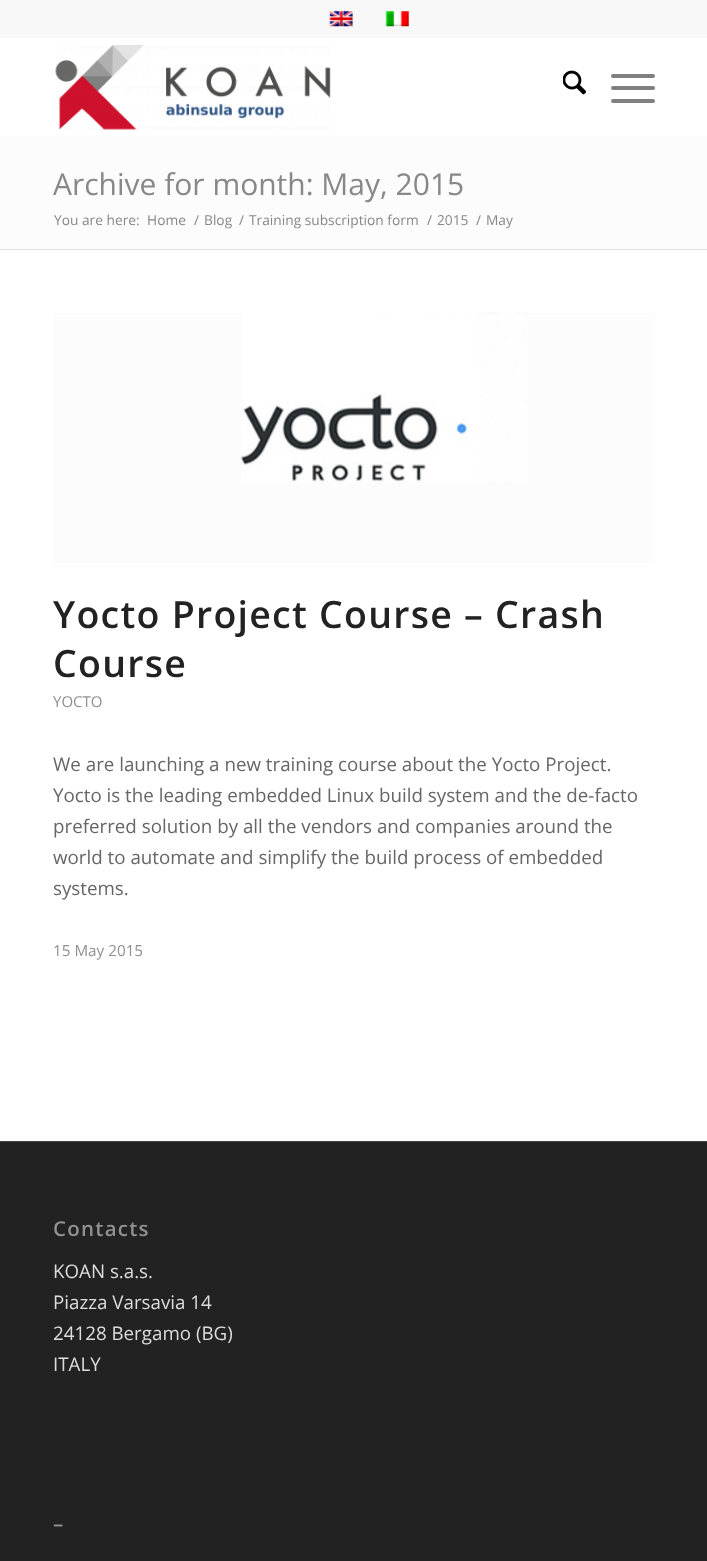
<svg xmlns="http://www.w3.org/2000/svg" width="707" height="1561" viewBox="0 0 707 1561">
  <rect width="100%" height="100%" fill="#fff"/>
  <path d="M0 0h707v38H0z" fill="#f8f8f8"/>
  <image x="329" y="11" width="24" height="16" href="img/1.png"/>
  <image x="385" y="11" width="24" height="16" href="img/2.png"/>
  <image x="55" y="44" width="276" height="86" href="img/3.png"/>
  <image x="563" y="70" width="23" height="25" href="img/4.png"/>
  <rect x="611" y="86" width="44" height="4" rx="2" fill="#808080"/>
  <rect x="611" y="74" width="44" height="4" rx="2" fill="#808080"/>
  <rect x="611" y="99" width="44" height="4" rx="2" fill="#808080"/>
  <path d="M0 136h707v113H0z" fill="#fcfcfc"/>
  <path d="M0 249h707v1H0z" fill="#e1e1e1"/>
  <rect x="53" y="313" width="602" height="250" rx="4" fill="#fcfcfc"/>
  <image x="241" y="312" width="287" height="170" href="img/5.png"/>
  <path d="M0 1142h707v419H0z" fill="#222"/>
  <path d="M0 1141h707v1H0z" fill="#444"/>
  <text x="53" y="195" font-family="Open Sans" font-size="30" fill="#888">Archive for month: May, 2015</text>
  <g font-family="Open Sans" font-size="13.75" fill="#888">
    <text x="54" y="225">You are here:</text>
    <text x="147" y="225">Home</text>
    <text x="194" y="225">/</text>
    <text x="204" y="225">Blog</text>
    <text x="239" y="225">/</text>
    <text x="249" y="225">Training subscription form</text>
    <text x="427" y="225">/</text>
    <text x="437" y="225">2015</text>
    <text x="476" y="225">/</text>
    <text x="486" y="225">May</text>
  </g>
  <g font-family="Open Sans" font-size="37.5" font-weight="600" letter-spacing="1.25" fill="#222">
    <text x="53" y="628">Yocto Project Course – Crash</text>
    <text x="53" y="677">Course</text>
  </g>
  <text x="53" y="707" font-family="Open Sans" font-size="15" fill="#919191">YOCTO</text>
  <g font-family="Open Sans" font-size="18.75" fill="#666">
    <text x="53" y="771">We are launching a new training course about the Yocto Project.</text>
    <text x="53" y="802">Yocto is the leading embedded Linux build system and the de-facto</text>
    <text x="53" y="833">preferred solution by all the vendors and companies around the</text>
    <text x="53" y="864">world to automate and simplify the build process of embedded</text>
    <text x="53" y="895">systems.</text>
  </g>
  <text x="53" y="956" font-family="Open Sans" font-size="15.25" fill="#919191">15 May 2015</text>
  <text x="53" y="1236" font-family="Open Sans" font-size="20.5" font-weight="600" letter-spacing="1.25" fill="#919191">Contacts</text>
  <g font-family="Open Sans" font-size="18.75" fill="#ddd">
    <text x="53" y="1278">KOAN s.a.s.</text>
    <text x="53" y="1309">Piazza Varsavia 14</text>
    <text x="53" y="1340">24128 Bergamo (BG)</text>
    <text x="53" y="1371">ITALY</text>
  </g>
  <text x="53" y="1531" font-family="Open Sans" font-size="20.5" font-weight="600" letter-spacing="1.25" fill="#919191">–</text>
</svg>
